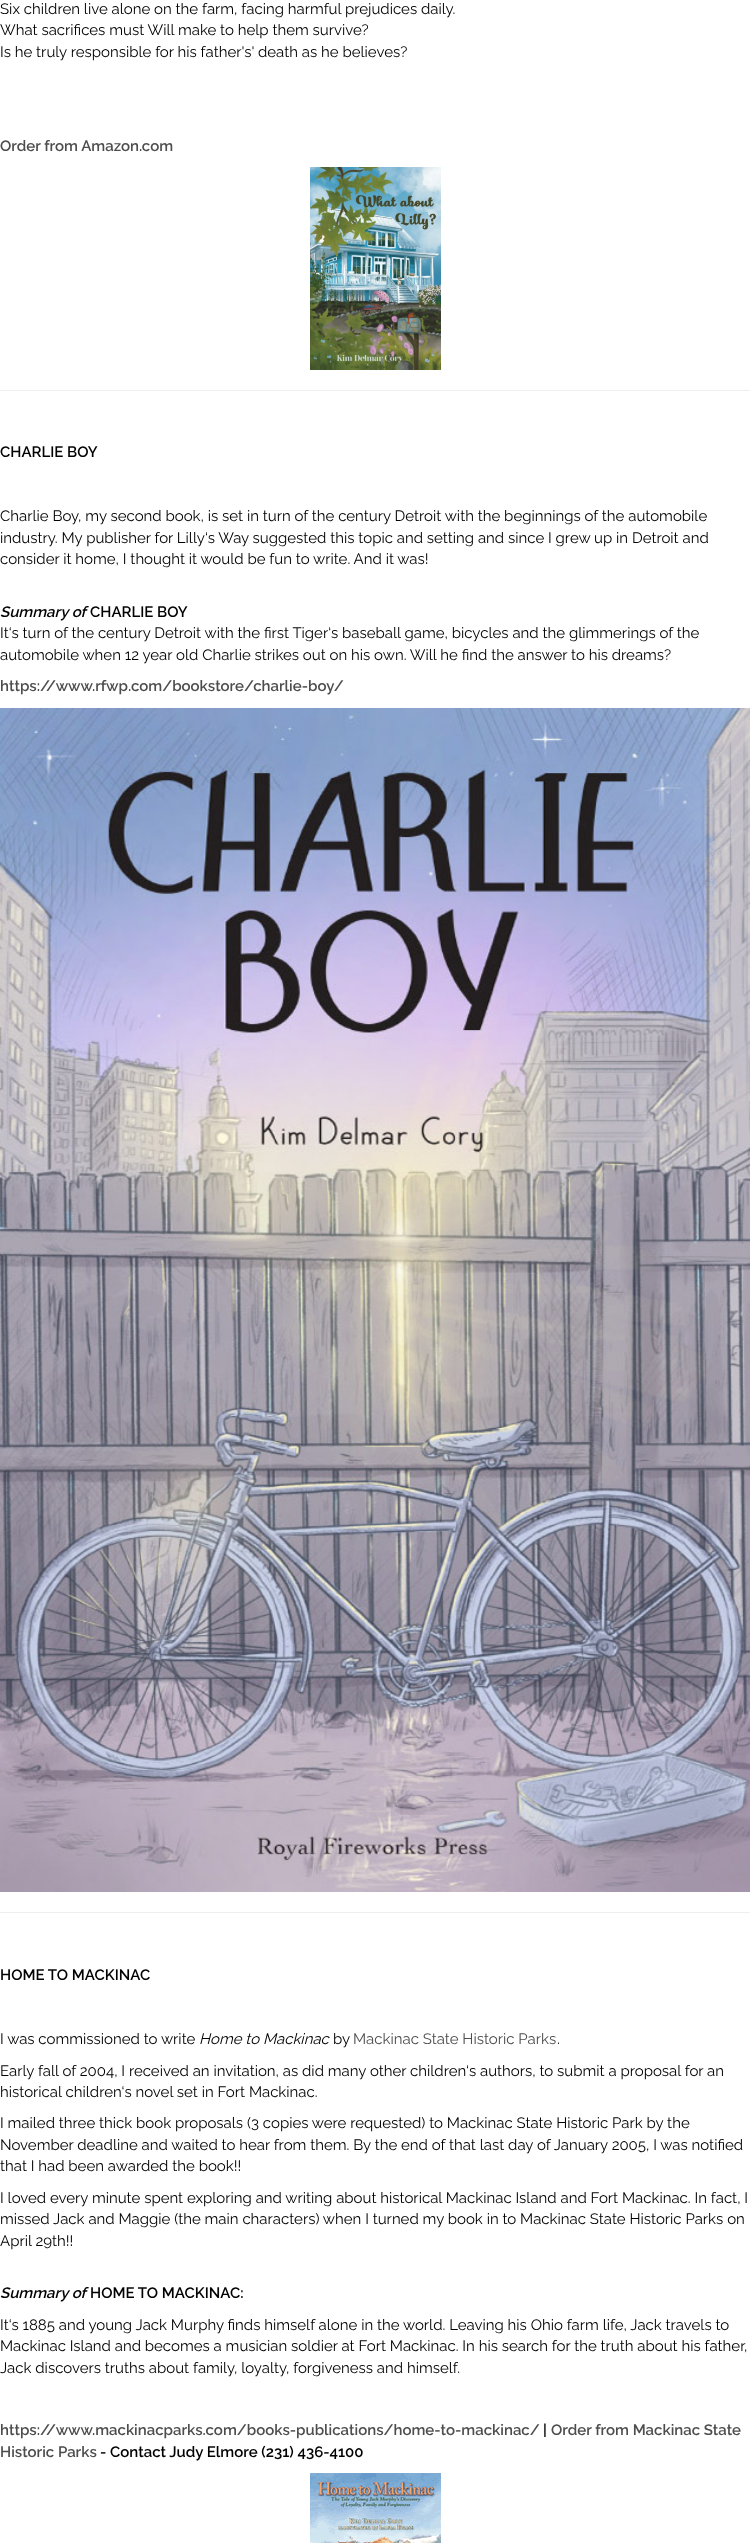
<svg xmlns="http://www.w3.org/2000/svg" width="750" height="2543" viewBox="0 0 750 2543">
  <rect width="100%" height="100%" fill="#fff"/>
  <image x="310" y="167" width="131" height="203" href="img/1.png"/>
  <path d="M0 390h750v1H0z" fill="#eee"/>
  <image x="0" y="708" width="750" height="1184" href="img/2.png"/>
  <path d="M0 1912h750v1H0z" fill="#eee"/>
  <image x="310" y="2473" width="131" height="70" href="img/3.png"/>
  <g font-family="Raleway" font-size="15" fill="#000">
    <text x="0" y="14">Six children live alone on the farm, facing harmful prejudices daily.</text>
    <text x="0" y="35">What sacrifices must Will make to help them survive?</text>
    <text x="0" y="57">Is he truly responsible for his father's' death as he believes?</text>
  </g>
  <text x="0" y="151" font-family="Raleway" font-size="15" font-weight="600" fill="#4d4d4d">Order from Amazon.com</text>
  <text x="0" y="457" font-family="Raleway" font-size="15" font-weight="600" fill="#000">CHARLIE BOY</text>
  <g font-family="Raleway" font-size="15" fill="#000">
    <text x="0" y="521">Charlie Boy, my second book, is set in turn of the century Detroit with the beginnings of the automobile</text>
    <text x="0" y="543">industry. My publisher for Lilly‘s Way suggested this topic and setting and since I grew up in Detroit and</text>
    <text x="0" y="564">consider it home, I thought it would be fun to write. And it was!</text>
  </g>
  <text x="0" y="617" font-family="Raleway" font-size="15" font-weight="600" font-style="italic" fill="#000">Summary of</text>
  <text x="90" y="617" font-family="Raleway" font-size="15" font-weight="600" fill="#000">CHARLIE BOY</text>
  <g font-family="Raleway" font-size="15" fill="#000">
    <text x="0" y="638">It‘s turn of the century Detroit with the first Tiger‘s baseball game, bicycles and the glimmerings of the</text>
    <text x="0" y="660">automobile when 12 year old Charlie strikes out on his own. Will he find the answer to his dreams?</text>
  </g>
  <text x="0" y="691" font-family="Raleway" font-size="15" font-weight="600" fill="#4d4d4d">https://www.rfwp.com/bookstore/charlie-boy/</text>
  <text x="0" y="1980" font-family="Raleway" font-size="15" font-weight="600" fill="#000">HOME TO MACKINAC</text>
  <text x="0" y="2044" font-family="Raleway" font-size="15" fill="#000">I was commissioned to write</text>
  <text x="199" y="2044" font-family="Raleway" font-size="15" font-style="italic" fill="#000">Home to Mackinac</text>
  <text x="333" y="2044" font-family="Raleway" font-size="15" fill="#000">by</text>
  <text x="353" y="2044" font-family="Raleway" font-size="15" fill="#4d4d4d">Mackinac State Historic Parks</text>
  <g font-family="Raleway" font-size="15" fill="#000">
    <text x="557" y="2044">.</text>
    <text x="0" y="2076">Early fall of 2004, I received an invitation, as did many other children‘s authors, to submit a proposal for an</text>
    <text x="0" y="2097">historical children‘s novel set in Fort Mackinac.</text>
    <text x="0" y="2128">I mailed three thick book proposals (3 copies were requested) to Mackinac State Historic Park by the</text>
    <text x="0" y="2150">November deadline and waited to hear from them. By the end of that last day of January 2005, I was notified</text>
    <text x="0" y="2171">that I had been awarded the book!!</text>
    <text x="0" y="2203">I loved every minute spent exploring and writing about historical Mackinac Island and Fort Mackinac. In fact, I</text>
    <text x="0" y="2224">missed Jack and Maggie (the main characters) when I turned my book in to Mackinac State Historic Parks on</text>
    <text x="0" y="2246">April 29th!!</text>
  </g>
  <text x="0" y="2298" font-family="Raleway" font-size="15" font-weight="600" font-style="italic" fill="#000">Summary of</text>
  <text x="90" y="2298" font-family="Raleway" font-size="15" font-weight="600" fill="#000">HOME TO MACKINAC:</text>
  <g font-family="Raleway" font-size="15" fill="#000">
    <text x="0" y="2330">It‘s 1885 and young Jack Murphy finds himself alone in the world. Leaving his Ohio farm life, Jack travels to</text>
    <text x="0" y="2351">Mackinac Island and becomes a musician soldier at Fort Mackinac. In his search for the truth about his father,</text>
    <text x="0" y="2373">Jack discovers truths about family, loyalty, forgiveness and himself.</text>
  </g>
  <text x="0" y="2435" font-family="Raleway" font-size="15" font-weight="600" fill="#4d4d4d">https://www.mackinacparks.com/books-publications/home-to-mackinac/</text>
  <text x="543" y="2435" font-family="Raleway" font-size="15" font-weight="600" fill="#000">|</text>
  <g font-family="Raleway" font-size="15" font-weight="600" fill="#4d4d4d">
    <text x="551" y="2435">Order from Mackinac State</text>
    <text x="0" y="2457">Historic Parks</text>
  </g>
  <text x="100" y="2457" font-family="Raleway" font-size="15" font-weight="600" fill="#000">- Contact Judy Elmore (231) 436-4100</text>
</svg>
